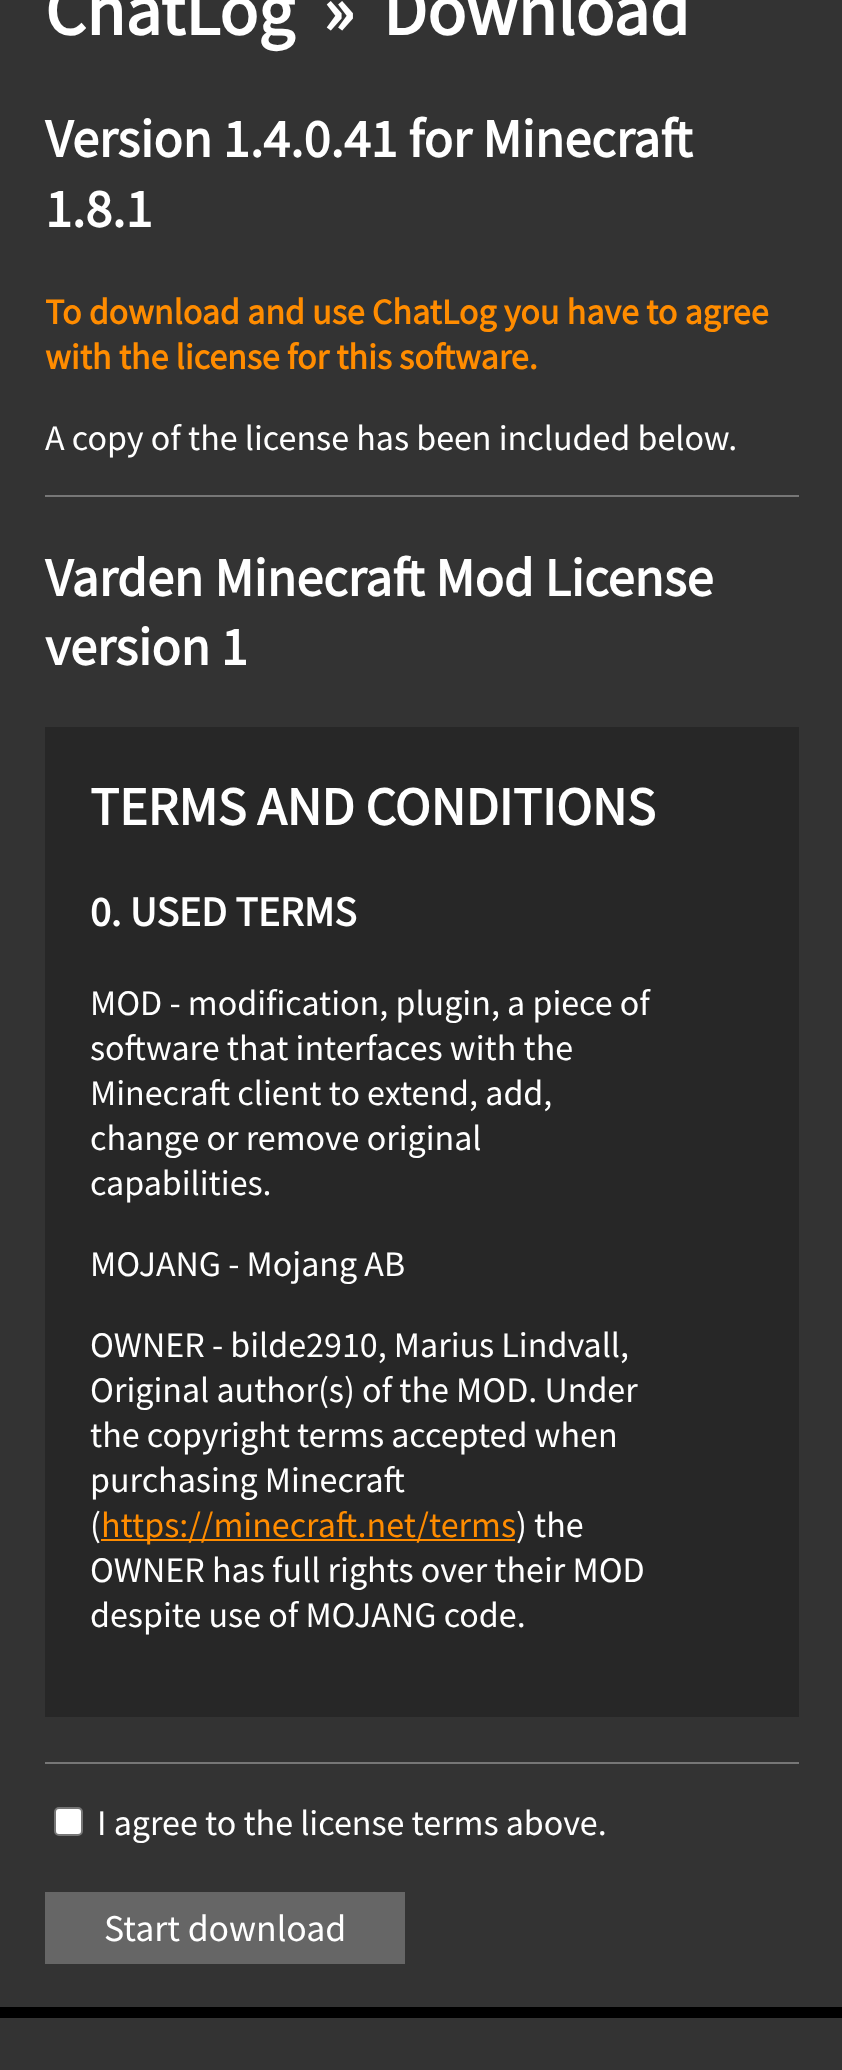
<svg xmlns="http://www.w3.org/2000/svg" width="842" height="2070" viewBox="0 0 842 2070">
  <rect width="100%" height="100%" fill="#333"/>
  <path d="M45 495h754v2H45z" fill="#777"/>
  <path d="M45 727h754v990H45z" fill="#272727"/>
  <path d="M101 1539h414v2H101z" fill="#ff8c00"/>
  <path d="M45 1762h754v2H45z" fill="#777"/>
  <rect x="55" y="1808" width="27" height="27" rx="4" fill="#fff" stroke="#767676" stroke-width="2"/>
  <path d="M45 1892h360v72H45z" fill="#666"/>
  <path d="M0 2007h842v11H0z" fill="#000"/>
  <text x="45" y="35" font-family="Source Sans Pro" font-size="72" font-weight="bold" fill="#fff" xml:space="preserve">ChatLog  »  Download</text>
  <g font-family="Source Sans Pro" font-size="54" font-weight="bold" fill="#fff">
    <text x="45" y="157">Version 1.4.0.41 for Minecraft</text>
    <text x="45" y="227">1.8.1</text>
  </g>
  <g font-family="Source Sans Pro" font-size="36" font-weight="bold" fill="#ff8c00">
    <text x="45" y="324">To download and use ChatLog you have to agree</text>
    <text x="45" y="369">with the license for this software.</text>
  </g>
  <text x="45" y="450" font-family="Source Sans Pro" font-size="36" fill="#fff">A copy of the license has been included below.</text>
  <g font-family="Source Sans Pro" font-size="54" font-weight="bold" fill="#fff">
    <text x="45" y="596">Varden Minecraft Mod License</text>
    <text x="45" y="665">version 1</text>
    <text x="90" y="825">TERMS AND CONDITIONS</text>
  </g>
  <text x="90" y="926" font-family="Source Sans Pro" font-size="42" font-weight="bold" fill="#fff">0. USED TERMS</text>
  <g font-family="Source Sans Pro" font-size="36" fill="#fff">
    <text x="90" y="1015">MOD - modification, plugin, a piece of</text>
    <text x="90" y="1060">software that interfaces with the</text>
    <text x="90" y="1105">Minecraft client to extend, add,</text>
    <text x="90" y="1150">change or remove original</text>
    <text x="90" y="1195">capabilities.</text>
    <text x="90" y="1276">MOJANG - Mojang AB</text>
    <text x="90" y="1357">OWNER - bilde2910, Marius Lindvall,</text>
    <text x="90" y="1402">Original author(s) of the MOD. Under</text>
    <text x="90" y="1447">the copyright terms accepted when</text>
    <text x="90" y="1492">purchasing Minecraft</text>
    <text x="90" y="1537">(</text>
  </g>
  <text x="101" y="1537" font-family="Source Sans Pro" font-size="36" fill="#ff8c00">https://minecraft.net/terms</text>
  <g font-family="Source Sans Pro" font-size="36" fill="#fff">
    <text x="516" y="1537">) the</text>
    <text x="90" y="1582">OWNER has full rights over their MOD</text>
    <text x="90" y="1627">despite use of MOJANG code.</text>
    <text x="97" y="1835">I agree to the license terms above.</text>
  </g>
  <text x="104" y="1941" font-family="Source Sans Pro" font-size="37.75" fill="#fff">Start download</text>
</svg>
